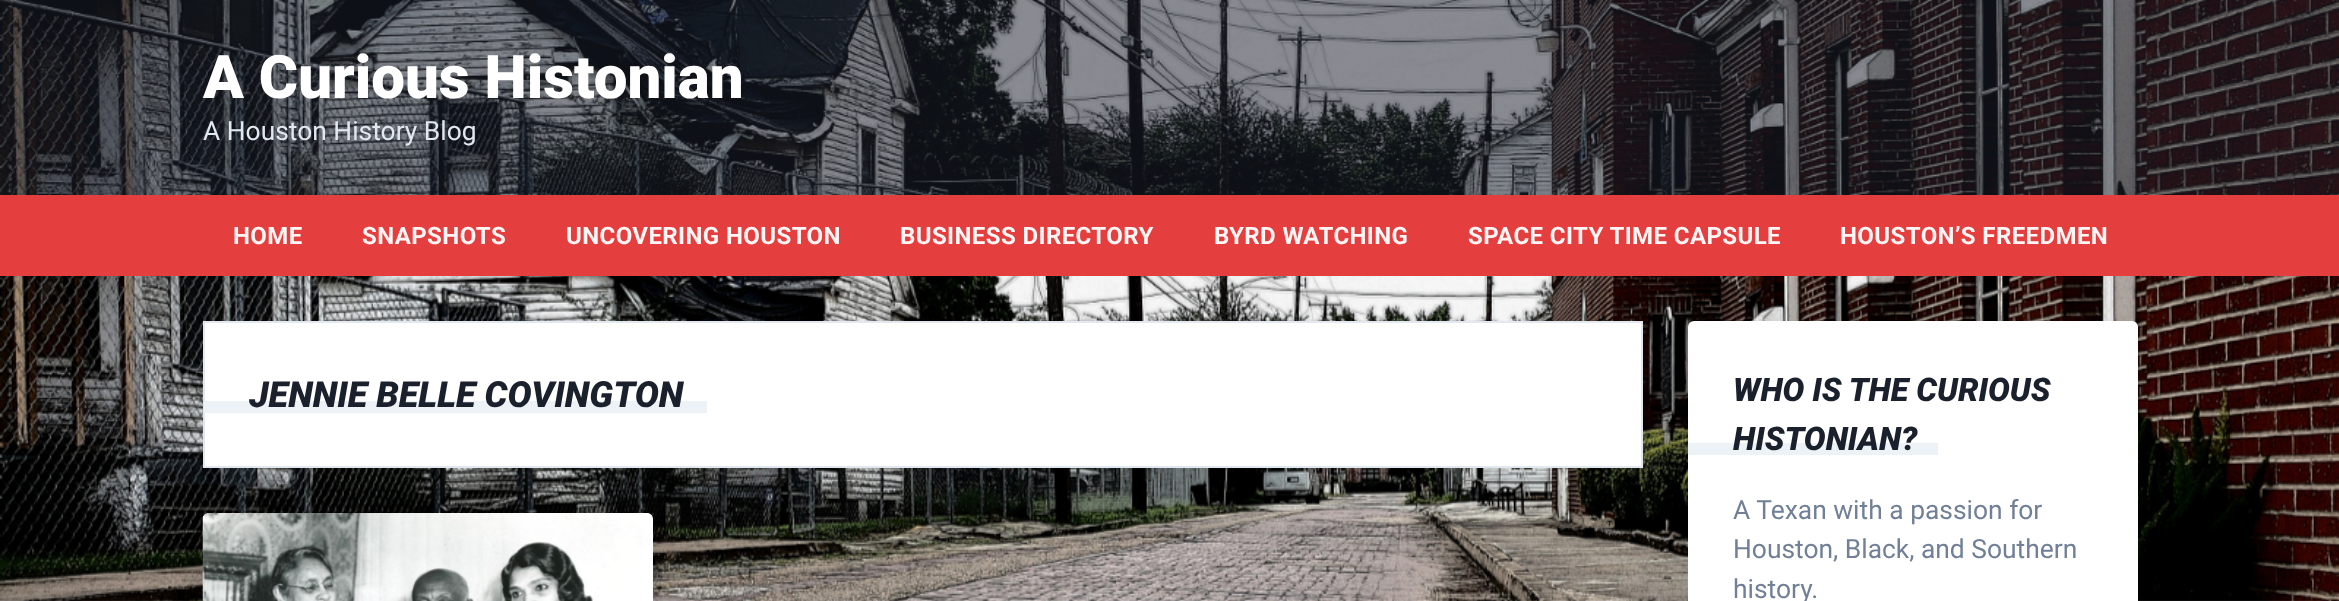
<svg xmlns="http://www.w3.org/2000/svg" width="2339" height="601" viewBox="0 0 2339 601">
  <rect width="100%" height="100%" fill="#fff"/>
  <image x="0" y="276" width="2339" height="325" href="img/1.png"/>
  <image x="0" y="0" width="2339" height="195" href="img/2.png"/>
  <path d="M0 195h2339v81H0z" fill="#e53e3e"/>
  <path d="M204 322h1438v145H204z" fill="#fff" stroke="#e2e8f0" stroke-width="2"/>
  <path d="M204 401h503v12H204z" fill="#edf2f7"/>
  <rect x="207" y="533" width="441" height="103" rx="1.5" fill="#0000001a" filter="blur(11px)"/>
  <rect x="203" y="513" width="450" height="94" rx="6" fill="#fff"/>
  <image x="202" y="513" width="451" height="88" href="img/3.png"/>
  <rect x="1692" y="341" width="441" height="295" rx="1.5" fill="#0000001a" filter="blur(11px)"/>
  <rect x="1688" y="321" width="450" height="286" rx="6" fill="#fff"/>
  <path d="M1688 443h250v12H1688z" fill="#edf2f7"/>
  <text x="203" y="98" font-family="Roboto" font-size="60" font-weight="900" fill="#fff">A Curious Histonian</text>
  <text x="203" y="140" font-family="Roboto" font-size="26.4" fill="#e2e8f0">A Houston History Blog</text>
  <g font-family="Roboto" font-size="24" font-weight="bold" letter-spacing="0.4" fill="#fff5f5">
    <text x="233" y="244">HOME</text>
    <text x="362" y="244">SNAPSHOTS</text>
    <text x="566" y="244">UNCOVERING HOUSTON</text>
    <text x="900" y="244">BUSINESS DIRECTORY</text>
    <text x="1214" y="244">BYRD WATCHING</text>
    <text x="1468" y="244">SPACE CITY TIME CAPSULE</text>
    <text x="1840" y="244">HOUSTON’S FREEDMEN</text>
  </g>
  <text x="249" y="407" font-family="Roboto" font-size="36" font-weight="900" font-style="italic" fill="#1a202c">JENNIE BELLE COVINGTON</text>
  <g font-family="Roboto" font-size="32.5" font-weight="900" font-style="italic" fill="#1a202c">
    <text x="1733" y="401">WHO IS THE CURIOUS</text>
    <text x="1733" y="450">HISTONIAN?</text>
  </g>
  <g font-family="Roboto" font-size="26.4" fill="#718096">
    <text x="1733" y="519">A Texan with a passion for</text>
    <text x="1733" y="558">Houston, Black, and Southern</text>
    <text x="1733" y="598">history.</text>
  </g>
</svg>
